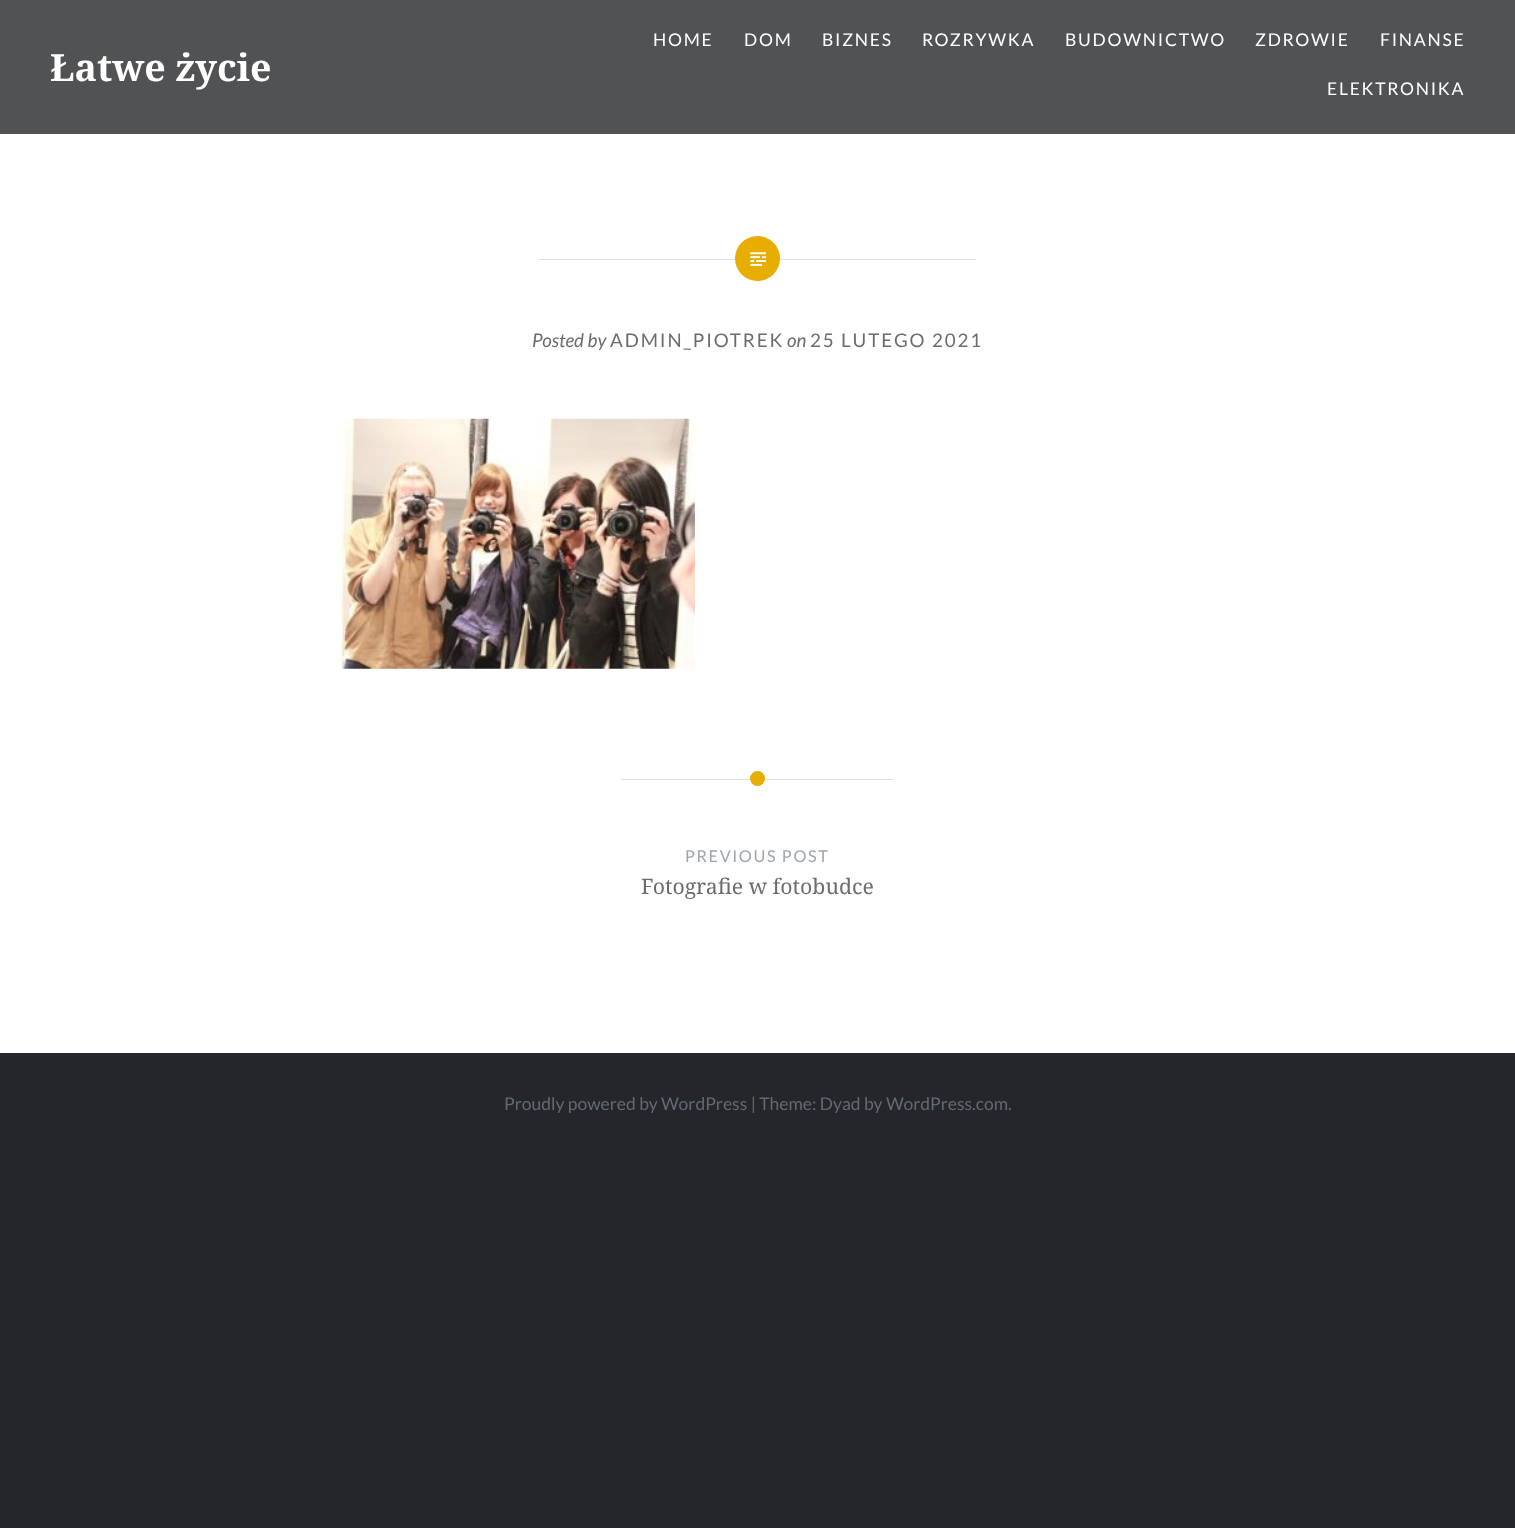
<svg xmlns="http://www.w3.org/2000/svg" width="1515" height="1528" viewBox="0 0 1515 1528">
  <rect width="100%" height="100%" fill="#242629"/>
  <path d="M0 134h1515v919H0z" fill="#fff"/>
  <path d="M0 0h1515v134H0z" fill="#505254"/>
  <path d="M539 259h437v1H539z" fill="#e0e0e0"/>
  <circle cx="757.5" cy="258.5" r="22.5" fill="#e7ae01"/>
  <image x="750" y="252" width="16" height="14" href="img/1.png"/>
  <image x="339" y="418" width="356" height="251" href="img/2.png"/>
  <path d="M621 779h273v1H621z" fill="#e0e0e0"/>
  <circle cx="757.5" cy="778.5" r="7.5" fill="#e7ae01"/>
  <text x="50" y="81" font-family="Noto Serif" font-size="37.5" font-weight="bold" fill="#fff">Łatwe życie</text>
  <g font-family="Lato" font-size="17.5" letter-spacing="1.75" fill="#fff">
    <text x="653" y="46">HOME</text>
    <text x="744" y="46">DOM</text>
    <text x="822" y="46">BIZNES</text>
    <text x="922" y="46">ROZRYWKA</text>
    <text x="1065" y="46">BUDOWNICTWO</text>
    <text x="1255" y="46">ZDROWIE</text>
    <text x="1380" y="46">FINANSE</text>
    <text x="1327" y="95">ELEKTRONIKA</text>
  </g>
  <text x="532" y="347" font-family="Lato" font-size="18.75" font-style="italic" fill="#6a6c6e">Posted by</text>
  <text x="610" y="347" font-family="Lato" font-size="18.75" letter-spacing="1.9" fill="#6a6c6e">ADMIN_PIOTREK</text>
  <text x="787" y="347" font-family="Lato" font-size="18.75" font-style="italic" fill="#6a6c6e">on</text>
  <text x="810" y="347" font-family="Lato" font-size="18.75" letter-spacing="1.9" fill="#6a6c6e">25 LUTEGO 2021</text>
  <text x="685" y="862" font-family="Lato" font-size="16.25" letter-spacing="1.6" fill="#9da5ad">PREVIOUS POST</text>
  <text x="641" y="894" font-family="Noto Serif" font-size="21.25" fill="#6a6c6e">Fotografie w fotobudce</text>
  <text x="504" y="1110" font-family="Lato" font-size="17.5" fill="#616a74">Proudly powered by WordPress | Theme: Dyad by WordPress.com.</text>
</svg>
